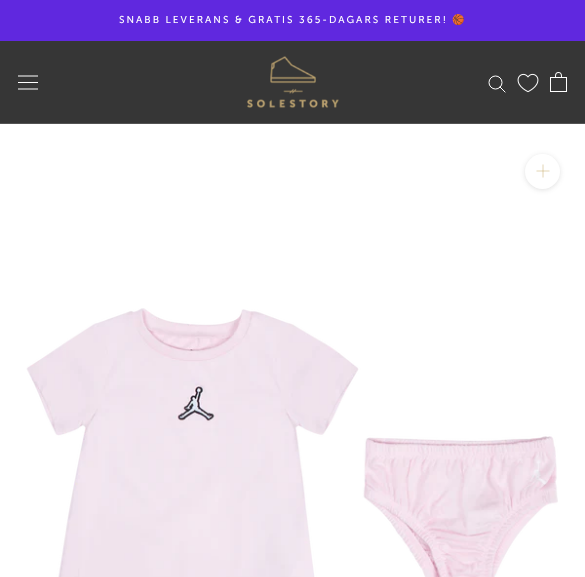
<svg xmlns="http://www.w3.org/2000/svg" width="585" height="577" viewBox="0 0 585 577">
  <rect width="100%" height="100%" fill="#fff"/>
  <path d="M0 0h585v41H0z" fill="#6028df"/>
  <path d="M0 41h585v82H0z" fill="#363636"/>
  <path d="M0 123h585v1H0z" fill="#545454"/>
  <image x="18" y="75" width="20" height="15" href="img/1.png"/>
  <image x="247" y="56" width="92" height="52" href="img/2.png"/>
  <path d="M505 92L500 87" fill="none" stroke="#fff" stroke-linecap="square"/>
  <circle cx="495.5" cy="82.5" r="6.5" fill="none" stroke="#fff"/>
  <image x="517" y="73" width="22" height="20" href="img/3.png"/>
  <image x="550" y="72" width="17" height="20" href="img/4.png"/>
  <rect x="525" y="155" width="35" height="35" rx="17.5" fill="#36363626" filter="blur(2.5px)"/>
  <circle cx="542.5" cy="171.5" r="17.5" fill="#fff"/>
  <path d="M543 165V177" fill="none" stroke="#dfcfab" stroke-width="0.9" stroke-linecap="square"/>
  <path d="M537 171H549" fill="none" stroke="#be9f5680" stroke-width="0.9" stroke-linecap="square"/>
  <image x="26" y="308" width="532" height="269" href="img/5.png"/>
  <text x="119" y="23" font-family="'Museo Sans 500'" font-size="10" letter-spacing="2" fill="#fff">SNABB LEVERANS &amp; GRATIS 365-DAGARS RETURER!</text>
  <text x="452" y="23" font-family="Noto Color Emoji" font-size="10" letter-spacing="2" fill="#fff">🏀</text>
</svg>
